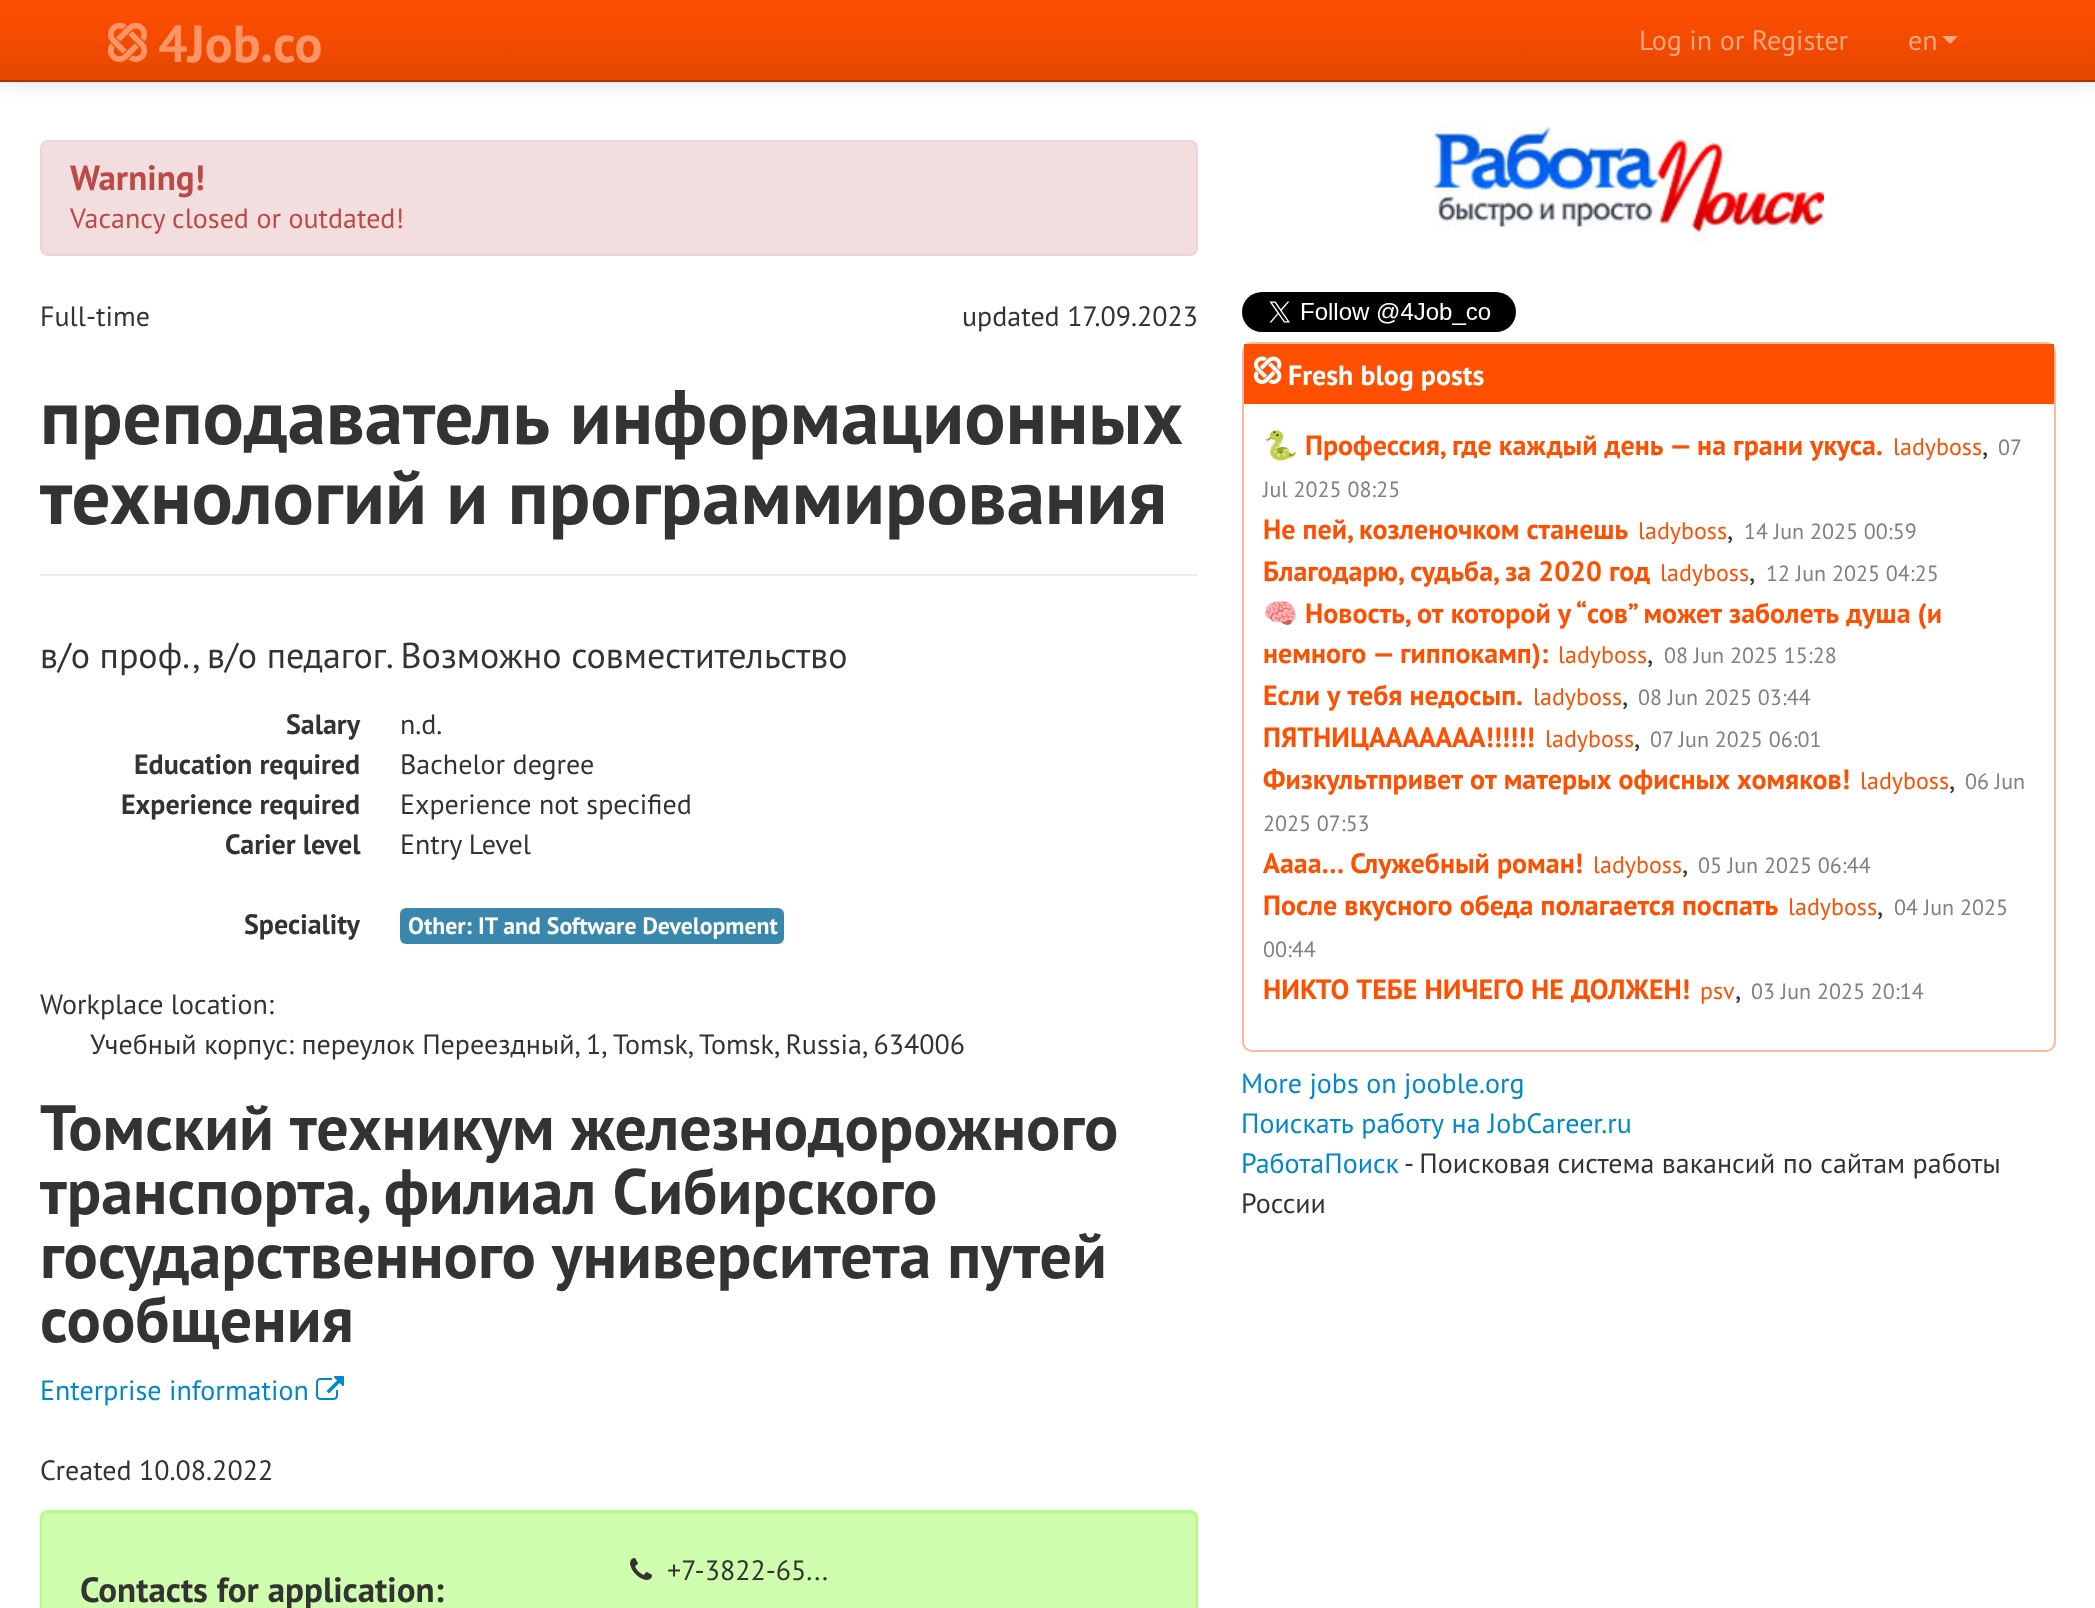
<svg xmlns="http://www.w3.org/2000/svg" width="2095" height="1608" viewBox="0 0 2095 1608">
  <defs>
    <linearGradient id="g1" gradientUnits="userSpaceOnUse" x1="1048" y1="0" x2="1048" y2="80"><stop offset="0" stop-color="#ff4f00"/><stop offset="1" stop-color="#e64700"/></linearGradient>
  </defs>
  <rect width="100%" height="100%" fill="#fff"/>
  <path d="M0 2h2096v82H0z" fill="#0000001a" filter="blur(10px)"/>
  <path d="M0 0h2095v80H0z" fill="url(#g1)"/>
  <path d="M0 80h2095v2H0z" fill="#a83400"/>
  <image x="107" y="22" width="41" height="40" href="img/1.png"/>
  <path d="M1942 36H1958L1950 44Z" fill="#ffa780"/>
  <rect x="41" y="141" width="1156" height="114" rx="7" fill="#f2dede" stroke="#eed3d7" stroke-width="2"/>
  <path d="M40 574h1158v2H40z" fill="#eee"/>
  <rect x="400" y="908" width="384" height="36" rx="6" fill="#3a87ad"/>
  <image x="316" y="1376" width="28" height="24" href="img/2.png"/>
  <rect x="40" y="1510" width="1158" height="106" rx="8" fill="#cfffae"/>
  <path d="M48 1514H1190C1193 1514 1196 1517 1196 1520V1518C1196 1515 1193 1512 1190 1512H48C45 1512 42 1515 42 1518V1520C42 1517 45 1514 48 1514Z" fill="#c5f2a5"/>
  <rect x="41" y="1511" width="1156" height="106" rx="7" fill="none" stroke="#b2ff7b" stroke-width="2"/>
  <image x="630" y="1558" width="22" height="22" href="img/3.png"/>
  <image x="1434" y="126" width="390" height="117" href="img/4.png"/>
  <image x="1242" y="292" width="274" height="40" href="img/5.png"/>
  <rect x="1243" y="343" width="812" height="708" rx="9" fill="none" stroke="#ffb999" stroke-width="2"/>
  <path d="M1244 344h810v60H1244z" fill="#ff4f00"/>
  <image x="1253" y="356" width="29" height="28" href="img/6.png"/>
  <text x="158" y="62" font-family="PT Sans" font-size="52" font-weight="bold" fill="#ff9566">4Job.co</text>
  <g font-family="PT Sans" font-size="28" fill="#ffa780">
    <text x="1639" y="50">Log in or Register</text>
    <text x="1908" y="50">en</text>
  </g>
  <text x="70" y="190" font-family="PT Sans" font-size="35" font-weight="bold" fill="#b94a48">Warning!</text>
  <text x="70" y="228" font-family="PT Sans" font-size="28" fill="#b94a48">Vacancy closed or outdated!</text>
  <g font-family="PT Sans" font-size="28" fill="#333">
    <text x="40" y="326">Full-time</text>
    <text x="962" y="326">updated 17.09.2023</text>
  </g>
  <g font-family="PT Sans" font-size="77" font-weight="bold" fill="#333">
    <text x="40" y="444">преподаватель информационных</text>
    <text x="40" y="524">технологий и программирования</text>
  </g>
  <text x="40" y="668" font-family="PT Sans" font-size="36" fill="#333">в/о проф., в/о педагог. Возможно совместительство</text>
  <text x="286" y="734" font-family="PT Sans" font-size="28" font-weight="bold" fill="#333">Salary</text>
  <text x="400" y="734" font-family="PT Sans" font-size="28" fill="#333">n.d.</text>
  <text x="134" y="774" font-family="PT Sans" font-size="28" font-weight="bold" fill="#333">Education required</text>
  <text x="400" y="774" font-family="PT Sans" font-size="28" fill="#333">Bachelor degree</text>
  <text x="121" y="814" font-family="PT Sans" font-size="28" font-weight="bold" fill="#333">Experience required</text>
  <text x="400" y="814" font-family="PT Sans" font-size="28" fill="#333">Experience not specified</text>
  <text x="225" y="854" font-family="PT Sans" font-size="28" font-weight="bold" fill="#333">Carier level</text>
  <text x="400" y="854" font-family="PT Sans" font-size="28" fill="#333">Entry Level</text>
  <text x="244" y="934" font-family="PT Sans" font-size="28" font-weight="bold" fill="#333">Speciality</text>
  <text x="408" y="934" font-family="PT Sans" font-size="23.75" font-weight="bold" fill="#fff">Other: IT and Software Development</text>
  <g font-family="PT Sans" font-size="28" fill="#333">
    <text x="40" y="1014">Workplace location:</text>
    <text x="90" y="1054">Учебный корпус: переулок Переездный, 1, Tomsk,</text>
    <text x="699" y="1054">Tomsk, Russia, 634006</text>
  </g>
  <g font-family="PT Sans" font-size="64" font-weight="bold" fill="#333">
    <text x="40" y="1150">Томский техникум железнодорожного</text>
    <text x="40" y="1214">транспорта, филиал Сибирского</text>
    <text x="40" y="1278">государственного университета путей</text>
    <text x="40" y="1342">сообщения</text>
  </g>
  <text x="40" y="1400" font-family="PT Sans" font-size="28" fill="#08c">Enterprise information</text>
  <g font-family="PT Sans" font-size="28" fill="#333">
    <text x="40" y="1480">Created 10.08.2022</text>
    <text x="667" y="1580">+7-3822-65...</text>
  </g>
  <text x="80" y="1602" font-family="PT Sans" font-size="35" font-weight="bold" fill="#333">Contacts for application:</text>
  <text x="1288" y="385" font-family="PT Sans" font-size="28" font-weight="bold" fill="#fff">Fresh blog posts</text>
  <text x="1263" y="455" font-family="Noto Color Emoji" font-size="28" font-weight="bold" fill="#ff4f00">🐍</text>
  <text x="1305" y="455" font-family="PT Sans" font-size="28" font-weight="bold" fill="#ff4f00">Профессия, где каждый день — на грани укуса.</text>
  <text x="1893" y="455" font-family="PT Sans" font-size="24" fill="#ff4f00">ladyboss</text>
  <text x="1982" y="455" font-family="PT Sans" font-size="28" fill="#333">,</text>
  <g font-family="PT Sans" font-size="22" fill="#808080">
    <text x="1998" y="455">07</text>
    <text x="1263" y="497">Jul 2025 08:25</text>
  </g>
  <text x="1263" y="539" font-family="PT Sans" font-size="28" font-weight="bold" fill="#ff4f00">Не пей, козленочком станешь</text>
  <text x="1638" y="539" font-family="PT Sans" font-size="24" fill="#ff4f00">ladyboss</text>
  <text x="1727" y="539" font-family="PT Sans" font-size="28" fill="#333">,</text>
  <text x="1744" y="539" font-family="PT Sans" font-size="22" fill="#808080">14 Jun 2025 00:59</text>
  <text x="1263" y="581" font-family="PT Sans" font-size="28" font-weight="bold" fill="#ff4f00">Благодарю, судьба, за 2020 год</text>
  <text x="1660" y="581" font-family="PT Sans" font-size="24" fill="#ff4f00">ladyboss</text>
  <text x="1749" y="581" font-family="PT Sans" font-size="28" fill="#333">,</text>
  <text x="1766" y="581" font-family="PT Sans" font-size="22" fill="#808080">12 Jun 2025 04:25</text>
  <text x="1263" y="623" font-family="Noto Color Emoji" font-size="28" font-weight="bold" fill="#ff4f00">🧠</text>
  <g font-family="PT Sans" font-size="28" font-weight="bold" fill="#ff4f00">
    <text x="1305" y="623">Новость, от которой у “сов” может заболеть душа (и</text>
    <text x="1263" y="663">немного — гиппокамп):</text>
  </g>
  <text x="1558" y="663" font-family="PT Sans" font-size="24" fill="#ff4f00">ladyboss</text>
  <text x="1647" y="663" font-family="PT Sans" font-size="28" fill="#333">,</text>
  <text x="1664" y="663" font-family="PT Sans" font-size="22" fill="#808080">08 Jun 2025 15:28</text>
  <text x="1263" y="705" font-family="PT Sans" font-size="28" font-weight="bold" fill="#ff4f00">Если у тебя недосып.</text>
  <text x="1533" y="705" font-family="PT Sans" font-size="24" fill="#ff4f00">ladyboss</text>
  <text x="1622" y="705" font-family="PT Sans" font-size="28" fill="#333">,</text>
  <text x="1638" y="705" font-family="PT Sans" font-size="22" fill="#808080">08 Jun 2025 03:44</text>
  <text x="1263" y="747" font-family="PT Sans" font-size="28" font-weight="bold" fill="#ff4f00">ПЯТНИЦААААААА!!!!!!</text>
  <text x="1545" y="747" font-family="PT Sans" font-size="24" fill="#ff4f00">ladyboss</text>
  <text x="1634" y="747" font-family="PT Sans" font-size="28" fill="#333">,</text>
  <text x="1650" y="747" font-family="PT Sans" font-size="22" fill="#808080">07 Jun 2025 06:01</text>
  <text x="1263" y="789" font-family="PT Sans" font-size="28" font-weight="bold" fill="#ff4f00">Физкультпривет от матерых офисных хомяков!</text>
  <text x="1860" y="789" font-family="PT Sans" font-size="24" fill="#ff4f00">ladyboss</text>
  <text x="1949" y="789" font-family="PT Sans" font-size="28" fill="#333">,</text>
  <g font-family="PT Sans" font-size="22" fill="#808080">
    <text x="1965" y="789">06 Jun</text>
    <text x="1263" y="831">2025 07:53</text>
  </g>
  <text x="1263" y="873" font-family="PT Sans" font-size="28" font-weight="bold" fill="#ff4f00">Аааа… Служебный роман!</text>
  <text x="1593" y="873" font-family="PT Sans" font-size="24" fill="#ff4f00">ladyboss</text>
  <text x="1682" y="873" font-family="PT Sans" font-size="28" fill="#333">,</text>
  <text x="1698" y="873" font-family="PT Sans" font-size="22" fill="#808080">05 Jun 2025 06:44</text>
  <text x="1263" y="915" font-family="PT Sans" font-size="28" font-weight="bold" fill="#ff4f00">После вкусного обеда полагается поспать</text>
  <text x="1788" y="915" font-family="PT Sans" font-size="24" fill="#ff4f00">ladyboss</text>
  <text x="1877" y="915" font-family="PT Sans" font-size="28" fill="#333">,</text>
  <g font-family="PT Sans" font-size="22" fill="#808080">
    <text x="1894" y="915">04 Jun 2025</text>
    <text x="1263" y="957">00:44</text>
  </g>
  <text x="1263" y="999" font-family="PT Sans" font-size="28" font-weight="bold" fill="#ff4f00">НИКТО ТЕБЕ НИЧЕГО НЕ ДОЛЖЕН!</text>
  <text x="1700" y="999" font-family="PT Sans" font-size="24" fill="#ff4f00">psv</text>
  <text x="1735" y="999" font-family="PT Sans" font-size="28" fill="#333">,</text>
  <text x="1751" y="999" font-family="PT Sans" font-size="22" fill="#808080">03 Jun 2025 20:14</text>
  <g font-family="PT Sans" font-size="28" fill="#08c">
    <text x="1241" y="1093">More jobs on jooble.org</text>
    <text x="1241" y="1133">Поискать работу на JobCareer.ru</text>
    <text x="1241" y="1173">РаботаПоиск</text>
  </g>
  <g font-family="PT Sans" font-size="28" fill="#333">
    <text x="1404" y="1173">- Поисковая система вакансий по сайтам работы</text>
    <text x="1241" y="1213">России</text>
  </g>
</svg>
